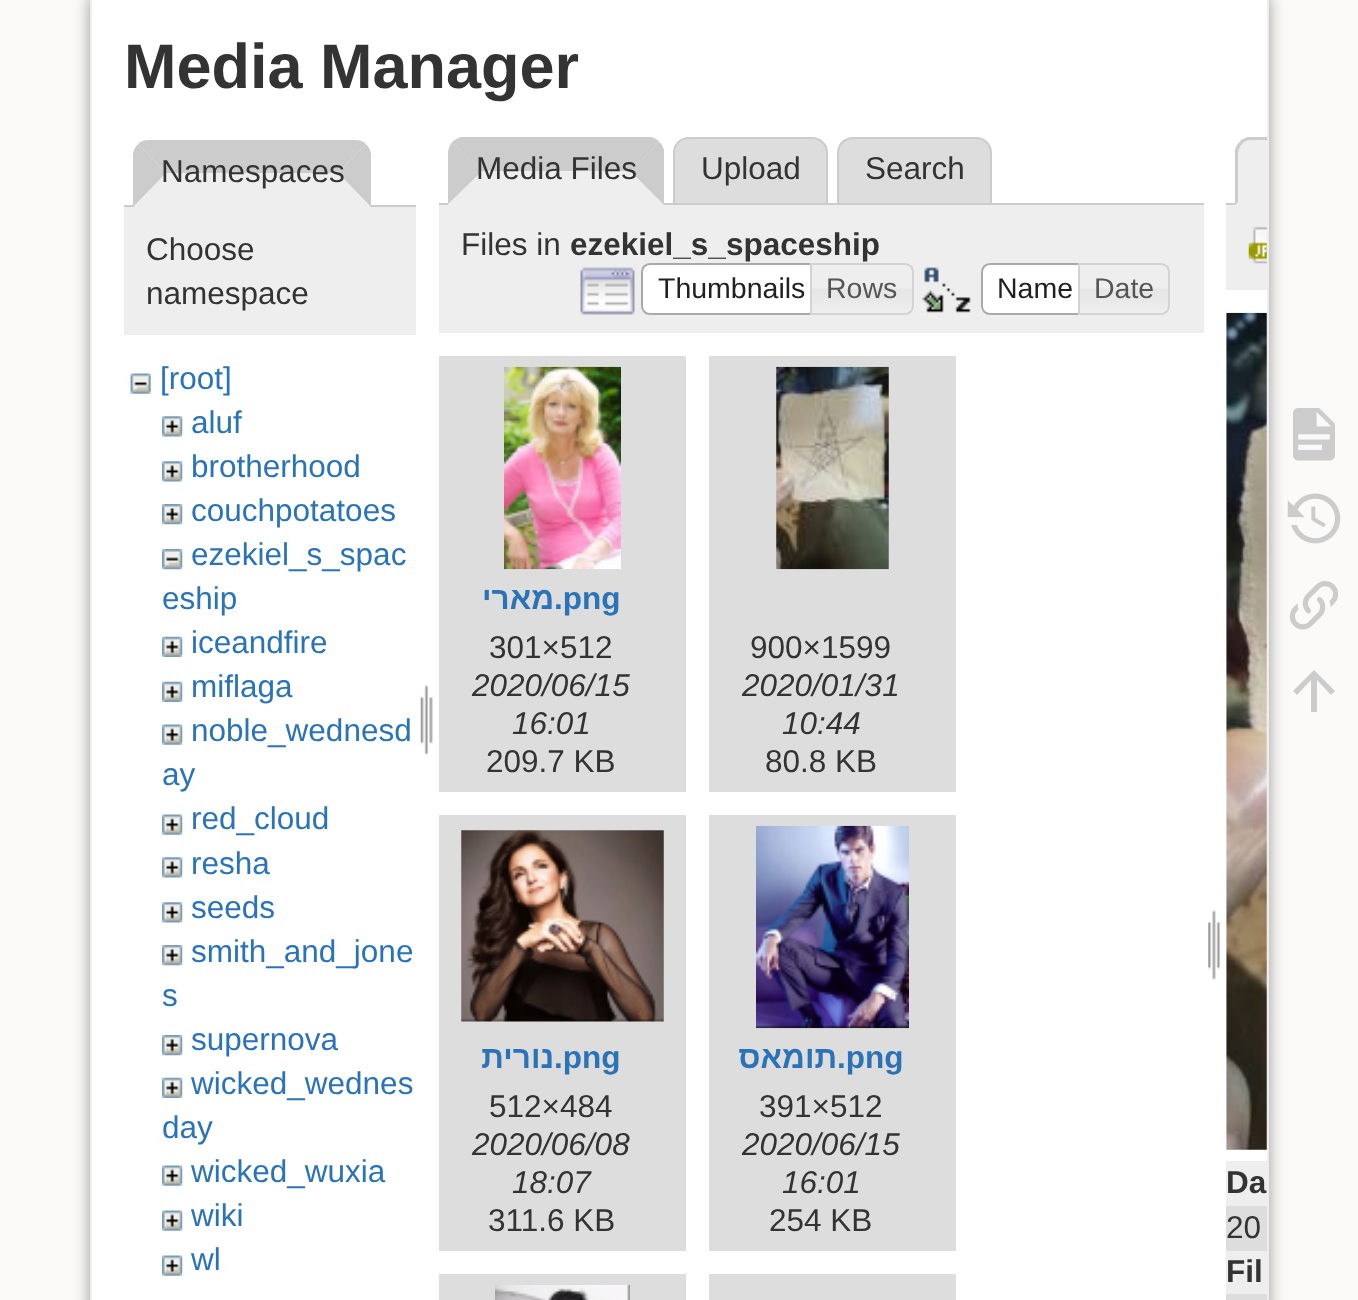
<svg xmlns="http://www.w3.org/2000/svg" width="1358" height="1300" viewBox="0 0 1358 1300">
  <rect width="100%" height="100%" fill="#fbfaf9"/>
  <rect x="90" y="-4" width="1179" height="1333" rx="5" fill="#999" filter="blur(8px)"/>
  <path d="M90 0h1179v1300H90z" fill="#fff"/>
  <rect x="91" y="-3" width="1177" height="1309" rx="4" fill="none" stroke="#eee" stroke-width="2"/>
  <path d="M148 140C144 140 140 142 138 144L166 173H338L366 144C364 142 360 140 356 140Z" fill="#ccc"/>
  <path d="M124 205h292v2H124z" fill="#ccc"/>
  <path d="M371 207V155C371 151 369 147 366 144L338 173Z" fill="#ccc"/>
  <path d="M371 207L338 173H166L133 207Z" fill="#eee"/>
  <path d="M138 144C135 147 133 151 133 155V207L166 173Z" fill="#ccc"/>
  <path d="M124 207h292v128H124z" fill="#eee"/>
  <image x="130" y="373" width="21" height="21" href="img/1.png"/>
  <image x="162" y="416" width="21" height="21" href="img/2.png"/>
  <image x="162" y="461" width="21" height="21" href="img/2.png"/>
  <image x="162" y="504" width="21" height="21" href="img/3.png"/>
  <image x="162" y="549" width="21" height="21" href="img/4.png"/>
  <image x="162" y="636" width="21" height="21" href="img/5.png"/>
  <image x="162" y="681" width="21" height="21" href="img/5.png"/>
  <image x="162" y="724" width="21" height="21" href="img/6.png"/>
  <image x="162" y="814" width="21" height="21" href="img/6.png"/>
  <image x="162" y="857" width="21" height="21" href="img/2.png"/>
  <image x="162" y="902" width="21" height="21" href="img/2.png"/>
  <image x="162" y="945" width="21" height="21" href="img/3.png"/>
  <image x="162" y="1035" width="21" height="21" href="img/3.png"/>
  <image x="162" y="1077" width="21" height="21" href="img/5.png"/>
  <image x="162" y="1165" width="21" height="21" href="img/6.png"/>
  <image x="162" y="1210" width="21" height="21" href="img/6.png"/>
  <image x="162" y="1255" width="21" height="21" href="img/7.png"/>
  <image x="420" y="684" width="13" height="71" href="img/8.png"/>
  <path d="M689 138H812C820.5 138 827 144.5 827 153V204H674V153C674 144.5 680.5 138 689 138Z" fill="#ddd" stroke="#ccc" stroke-width="2"/>
  <path d="M853 138H976C984.5 138 991 144.5 991 153V204H838V153C838 144.5 844.5 138 853 138Z" fill="#ddd" stroke="#ccc" stroke-width="2"/>
  <path d="M439 203h765v2H439z" fill="#ccc"/>
  <path d="M464 137H648C657 137 664 144 664 153V205H448V153C448 144 455 137 464 137Z" fill="#eee"/>
  <path d="M651 137H461C458 138 455 140 452 142L482 171H630L659 142C657 139 654 138 651 137Z" fill="#ccc"/>
  <path d="M659 142L630 171L664 205V150C663 147 662 144 659 142Z" fill="#ccc"/>
  <path d="M664 205L630 171H482L448 205Z" fill="#eee"/>
  <path d="M448 204L482 171L452 142C450 145 448 149 448 153Z" fill="#ccc"/>
  <path d="M439 205h765v128H439z" fill="#eee"/>
  <image x="580" y="267" width="55" height="48" href="img/9.png"/>
  <path d="M650 264H820V314H650C645.5 314 642 310.5 642 306V272C642 267.5 645.5 264 650 264Z" fill="#fff" stroke="#aaa" stroke-width="2"/>
  <image x="812" y="263" width="101" height="52" href="img/10.png"/>
  <path d="M811 264H905C909.5 264 913 267.5 913 272V306C913 310.5 909.5 314 905 314H811Z" fill="none" stroke="#d3d3d3" stroke-width="2"/>
  <image x="922" y="267" width="49" height="46" href="img/11.png"/>
  <path d="M990 264H1088V314H990C985.5 314 982 310.5 982 306V272C982 267.5 985.5 264 990 264Z" fill="#fff" stroke="#aaa" stroke-width="2"/>
  <image x="1077" y="264" width="93" height="51" href="img/12.png"/>
  <path d="M1079 264H1161C1165.5 264 1169 267.5 1169 272V306C1169 310.5 1165.5 314 1161 314H1079Z" fill="none" stroke="#d3d3d3" stroke-width="2"/>
  <path d="M439 356h247v436H439z" fill="#ddd"/>
  <image x="504" y="366" width="117" height="204" href="img/13.png"/>
  <path d="M709 356h247v436H709z" fill="#ddd"/>
  <image x="776" y="366" width="113" height="204" href="img/14.png"/>
  <path d="M439 815h247v436H439z" fill="#ddd"/>
  <image x="461" y="830" width="203" height="192" href="img/15.png"/>
  <path d="M709 815h247v436H709z" fill="#ddd"/>
  <image x="756" y="825" width="153" height="204" href="img/16.png"/>
  <path d="M439 1274h247v26H439z" fill="#ddd"/>
  <image x="495" y="1285" width="135" height="15" href="img/17.png"/>
  <path d="M709 1274h247v26H709z" fill="#ddd"/>
  <image x="1208" y="909" width="13" height="71" href="img/18.png"/>
  <path d="M1226 203h9v2H1226z" fill="#ccc"/>
  <path d="M1251 137H1267V205H1235V153C1235 144 1242 137 1251 137Z" fill="#eee"/>
  <path d="M1267 137H1248C1245 138 1242 139.5 1239.5 141.5L1242 144C1244 141.5 1247.5 140 1251 140H1267Z" fill="#ccc"/>
  <path d="M1235 205L1238 202V153C1238 150 1240 146 1242 144L1240 142C1237 144 1236 147 1235 150Z" fill="#ccc"/>
  <path d="M1226 205h41v85H1226z" fill="#eee"/>
  <image x="1248" y="227" width="19" height="37" href="img/19.png"/>
  <image x="1226" y="312" width="41" height="838" href="img/20.png"/>
  <path d="M1226 1161h41v45H1226z" fill="#eee"/>
  <path d="M1226 1206h41v45H1226z" fill="#ddd"/>
  <path d="M1226 1251h41v43H1226z" fill="#eee"/>
  <path d="M1226 1294h41v6H1226z" fill="#ddd"/>
  <image x="1293" y="408" width="42" height="53" href="img/21.png"/>
  <image x="1287" y="493" width="54" height="51" href="img/22.png"/>
  <image x="1289" y="581" width="50" height="49" href="img/23.png"/>
  <path d="M1317 712H1311V680L1297 695L1293 691L1314 670L1335 691L1331 695L1317 680Z" fill="#ccc"/>
  <text x="124" y="88" font-family="Liberation Sans" font-size="63" font-weight="bold" fill="#333">Media Manager</text>
  <g font-family="Liberation Sans" font-size="31.5" fill="#333">
    <text x="161" y="182">Namespaces</text>
    <text x="146" y="260">Choose</text>
    <text x="146" y="304">namespace</text>
  </g>
  <g font-family="Liberation Sans" font-size="31.5" fill="#2b73b7">
    <text x="160" y="389">[root]</text>
    <text x="191" y="433">aluf</text>
    <text x="191" y="477">brotherhood</text>
    <text x="191" y="521">couchpotatoes</text>
    <text x="191" y="565">ezekiel_s_spac</text>
    <text x="162" y="609">eship</text>
    <text x="191" y="653">iceandfire</text>
    <text x="191" y="697">miflaga</text>
    <text x="191" y="741">noble_wednesd</text>
    <text x="162" y="785">ay</text>
    <text x="191" y="829">red_cloud</text>
    <text x="191" y="874">resha</text>
    <text x="191" y="918">seeds</text>
    <text x="191" y="962">smith_and_jone</text>
    <text x="162" y="1006">s</text>
    <text x="191" y="1050">supernova</text>
    <text x="191" y="1094">wicked_wednes</text>
    <text x="162" y="1138">day</text>
    <text x="191" y="1182">wicked_wuxia</text>
    <text x="191" y="1226">wiki</text>
    <text x="191" y="1270">wl</text>
  </g>
  <g font-family="Liberation Sans" font-size="31.5" fill="#333">
    <text x="476" y="179">Media Files</text>
    <text x="701" y="179">Upload</text>
    <text x="865" y="179">Search</text>
    <text x="461" y="255">Files in</text>
  </g>
  <text x="570" y="255" font-family="Liberation Sans" font-size="31.5" font-weight="bold" fill="#333">ezekiel_s_spaceship</text>
  <text x="658" y="298" font-family="Liberation Sans" font-size="28.5" fill="#212121">Thumbnails</text>
  <text x="826" y="298" font-family="Liberation Sans" font-size="28.5" fill="#555">Rows</text>
  <text x="997" y="298" font-family="Liberation Sans" font-size="28.5" fill="#212121">Name</text>
  <text x="1094" y="298" font-family="Liberation Sans" font-size="28.5" fill="#555">Date</text>
  <text x="554" y="609" font-family="Liberation Sans" font-size="31.5" font-weight="bold" direction="rtl" fill="#2b73b7">מארי</text>
  <text x="554" y="609" font-family="Liberation Sans" font-size="31.5" font-weight="bold" fill="#2b73b7">.png</text>
  <text x="489" y="658" font-family="Liberation Sans" font-size="31.5" fill="#333">301×512</text>
  <g font-family="Liberation Sans" font-size="31.5" font-style="italic" fill="#333">
    <text x="472" y="696">2020/06/15</text>
    <text x="512" y="734">16:01</text>
  </g>
  <g font-family="Liberation Sans" font-size="31.5" fill="#333">
    <text x="486" y="772">209.7 KB</text>
    <text x="750" y="658">900×1599</text>
  </g>
  <g font-family="Liberation Sans" font-size="31.5" font-style="italic" fill="#333">
    <text x="742" y="696">2020/01/31</text>
    <text x="782" y="734">10:44</text>
  </g>
  <text x="765" y="772" font-family="Liberation Sans" font-size="31.5" fill="#333">80.8 KB</text>
  <text x="554" y="1068" font-family="Liberation Sans" font-size="31.5" font-weight="bold" direction="rtl" fill="#2b73b7">נורית</text>
  <text x="554" y="1068" font-family="Liberation Sans" font-size="31.5" font-weight="bold" fill="#2b73b7">.png</text>
  <text x="489" y="1117" font-family="Liberation Sans" font-size="31.5" fill="#333">512×484</text>
  <g font-family="Liberation Sans" font-size="31.5" font-style="italic" fill="#333">
    <text x="472" y="1155">2020/06/08</text>
    <text x="512" y="1193">18:07</text>
  </g>
  <text x="488" y="1231" font-family="Liberation Sans" font-size="31.5" fill="#333">311.6 KB</text>
  <text x="837" y="1068" font-family="Liberation Sans" font-size="31.5" font-weight="bold" direction="rtl" fill="#2b73b7">תומאס</text>
  <text x="837" y="1068" font-family="Liberation Sans" font-size="31.5" font-weight="bold" fill="#2b73b7">.png</text>
  <text x="759" y="1117" font-family="Liberation Sans" font-size="31.5" fill="#333">391×512</text>
  <g font-family="Liberation Sans" font-size="31.5" font-style="italic" fill="#333">
    <text x="742" y="1155">2020/06/15</text>
    <text x="782" y="1193">16:01</text>
  </g>
  <text x="769" y="1231" font-family="Liberation Sans" font-size="31.5" fill="#333">254 KB</text>
  <text x="1226" y="1193" font-family="Liberation Sans" font-size="31.5" font-weight="bold" fill="#333">Da</text>
  <text x="1226" y="1238" font-family="Liberation Sans" font-size="31.5" fill="#333">20</text>
  <text x="1226" y="1282" font-family="Liberation Sans" font-size="31.5" font-weight="bold" fill="#333">Fil</text>
</svg>
